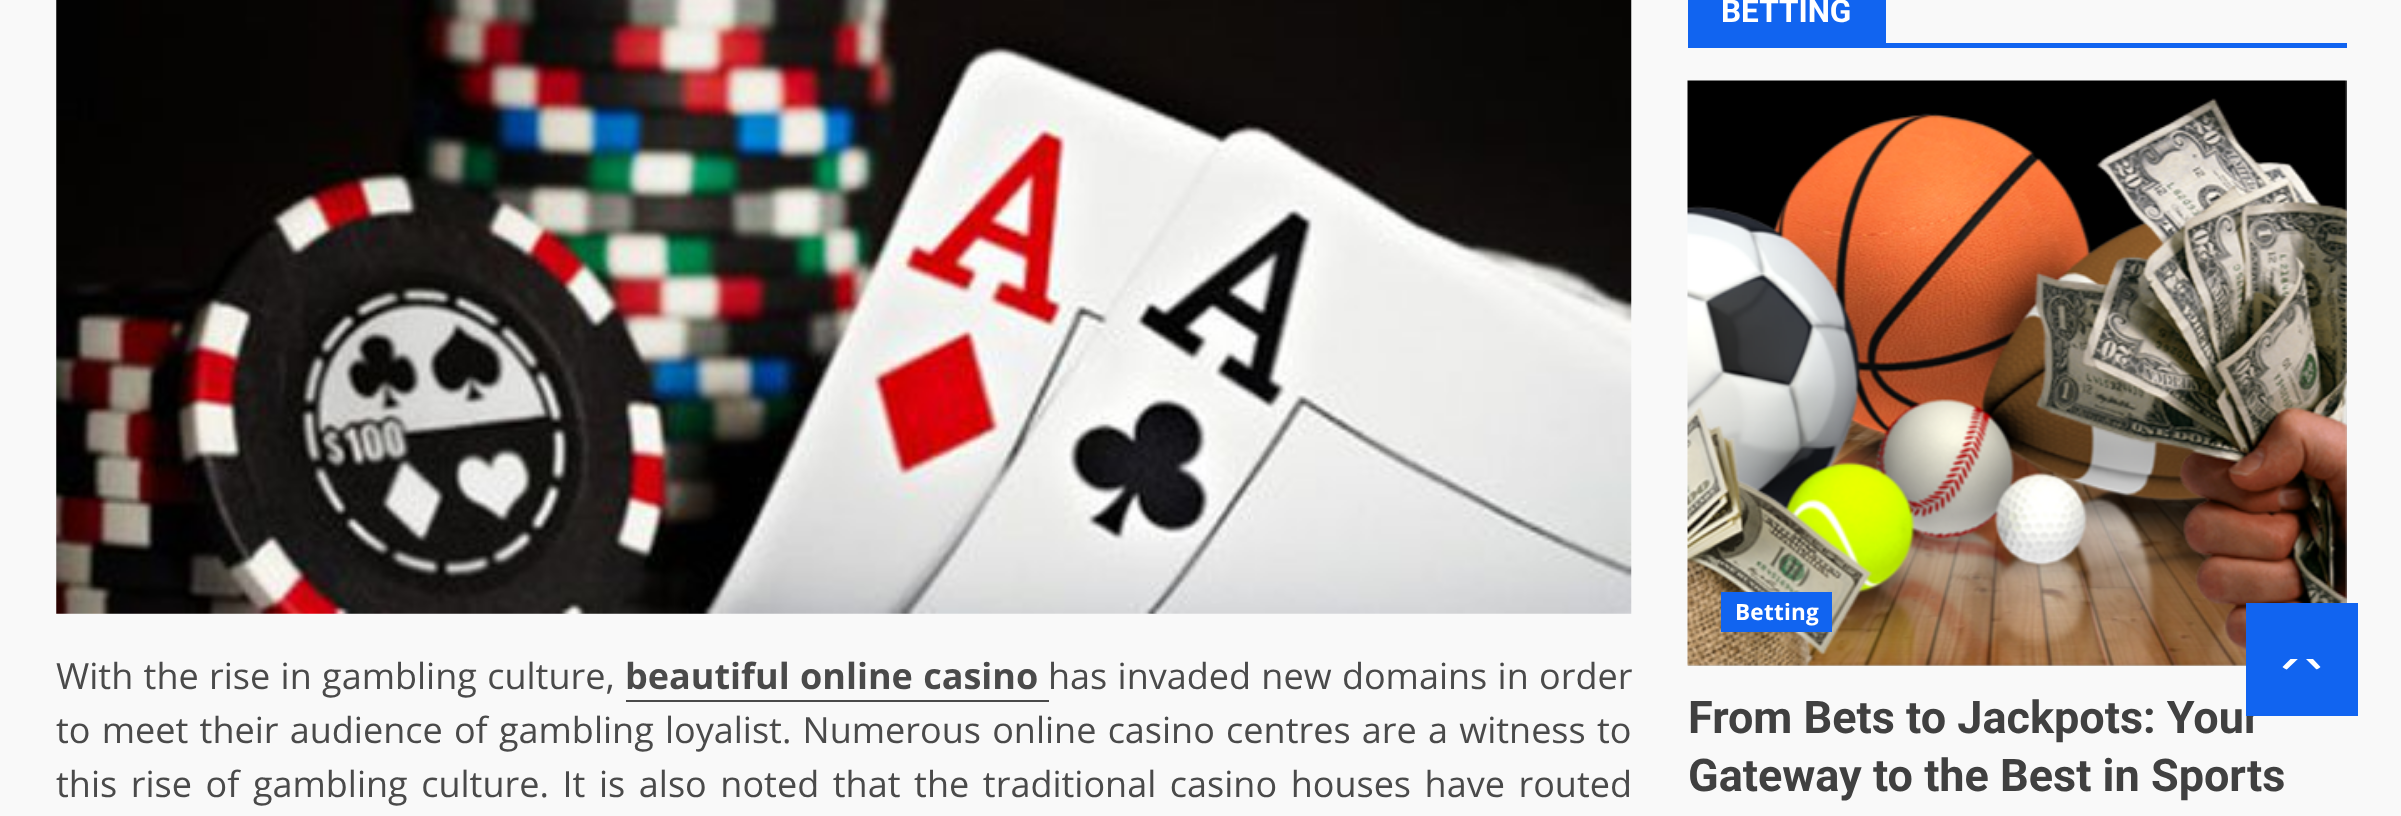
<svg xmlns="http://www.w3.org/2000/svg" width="2401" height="816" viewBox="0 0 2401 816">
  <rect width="100%" height="100%" fill="#f9f9f9"/>
  <image x="56" y="0" width="1576" height="614" href="img/1.png"/>
  <path d="M626 700h423v2H626z" fill="#4a4a4a"/>
  <path d="M1688 43h659v5H1688z" fill="#1164f0"/>
  <path d="M1688 0h198v43H1688z" fill="#1164f0"/>
  <path d="M1688 81h659v585H1688z" fill="#ccc"/>
  <image x="1687" y="80" width="660" height="586" href="img/2.png"/>
  <path d="M1721 592h111v40H1721z" fill="#1164f0"/>
  <text x="56" y="689" word-spacing="1" font-family="Open Sans" font-size="36" fill="#4a4a4a">With the rise in gambling culture,</text>
  <text x="625" y="689" word-spacing="1" font-family="Open Sans" font-size="36" font-weight="bold" fill="#4a4a4a">beautiful online casino</text>
  <g font-family="Open Sans" font-size="36" fill="#4a4a4a">
    <text x="1048" y="689" word-spacing="1">has invaded new domains in order</text>
    <text x="56" y="743" word-spacing="1.9">to meet their audience of gambling loyalist. Numerous online casino centres are a witness to</text>
    <text x="56" y="797" word-spacing="4.25">this rise of gambling culture. It is also noted that the traditional casino houses have routed</text>
  </g>
  <text x="1721" y="22" font-family="Roboto" font-size="31.5" font-weight="bold" fill="#fff">BETTING</text>
  <text x="1735" y="620" font-family="Open Sans" font-size="22.5" font-weight="bold" letter-spacing="0.25" fill="#fff">Betting</text>
  <g font-family="Roboto" font-size="45" font-weight="bold" fill="#404040">
    <text x="1688" y="733">From Bets to Jackpots: Your</text>
    <text x="1688" y="791">Gateway to the Best in Sports</text>
  </g>
  <path d="M2246 603h112v113H2246z" fill="#1164f0"/>
  <path d="M2320.5 667C2318.5 669 2316 670 2313 670H2290C2287 670 2284.5 669 2282.5 667L2290.5 659H2313Z" fill="#fff"/>
  <path d="M2324 677H2279L2302 655Z" fill="#1164f0"/>
</svg>
